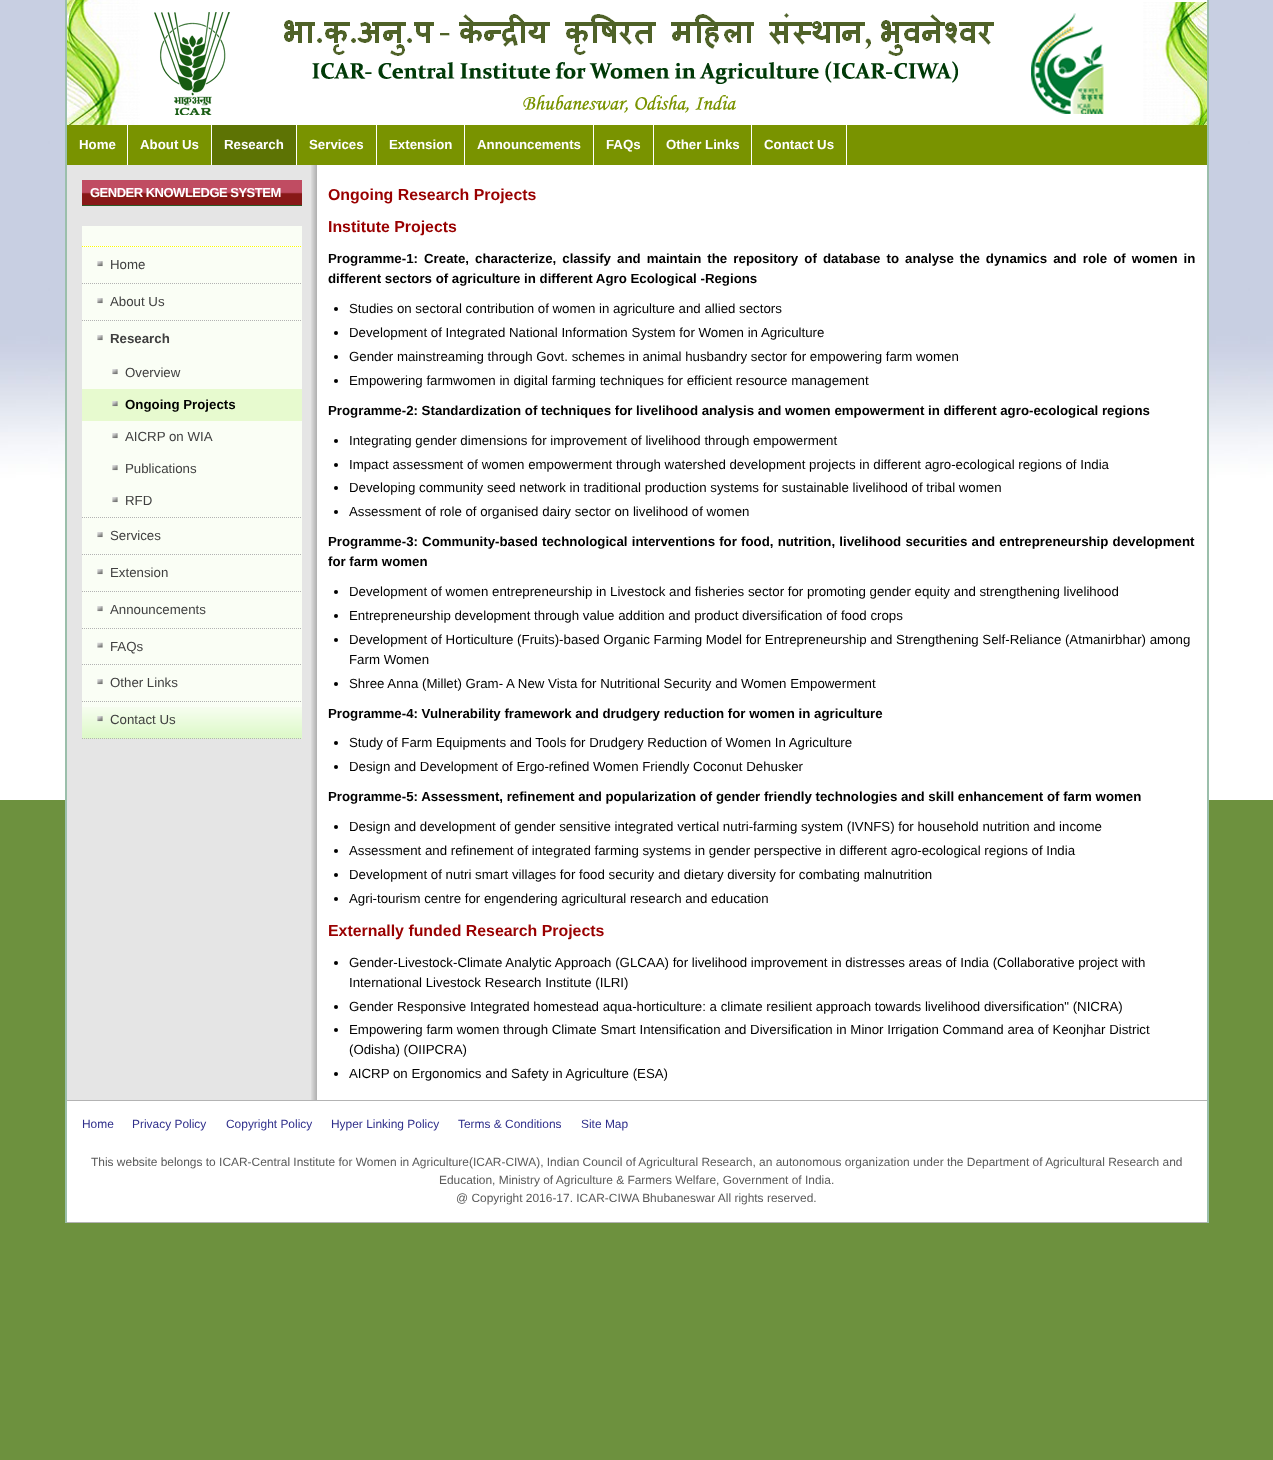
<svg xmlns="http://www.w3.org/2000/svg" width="1273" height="1460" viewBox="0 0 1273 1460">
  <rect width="100%" height="100%" fill="#6d913e"/>
  <image x="0" y="0" width="1273" height="800" href="img/1.png"/>
  <path d="M67 165h1140v1057H67z" fill="#fff"/>
  <path d="M1207 0h2v1223H1207z" fill="#9bbfab"/>
  <path d="M65 0h2v1223H65z" fill="#9bbfab"/>
  <image x="67" y="0" width="1140" height="125" href="img/2.png"/>
  <path d="M67 125h1140v40H67z" fill="#799300"/>
  <path d="M127 125h1v40H127z" fill="#fff"/>
  <path d="M211 125h1v40H211z" fill="#fff"/>
  <path d="M212 125h84v40H212z" fill="#5d7304"/>
  <path d="M296 125h1v40H296z" fill="#fff"/>
  <path d="M376 125h1v40H376z" fill="#fff"/>
  <path d="M464 125h1v40H464z" fill="#fff"/>
  <path d="M593 125h1v40H593z" fill="#fff"/>
  <path d="M653 125h1v40H653z" fill="#fff"/>
  <path d="M751 125h1v40H751z" fill="#fff"/>
  <path d="M846 125h1v40H846z" fill="#fff"/>
  <path d="M67 165h244v935H67z" fill="#e5e5e5"/>
  <image x="311" y="165" width="6" height="935" href="img/3.png"/>
  <image x="82" y="180" width="220" height="25" href="img/4.png"/>
  <path d="M82 205h220v1H82z" fill="#2c5a26"/>
  <path d="M82 226h220v481H82z" fill="#fafef5"/>
  <image x="82" y="707" width="220" height="32" href="img/5.png"/>
  <path d="M82 246.5H302" fill="none" stroke="#ff0" stroke-dasharray="1 1"/>
  <path d="M82 283.5H302" fill="none" stroke="#b3b3b3" stroke-dasharray="1 1"/>
  <image x="97" y="261" width="6" height="6" href="img/6.png"/>
  <path d="M82 320.5H302" fill="none" stroke="#b3b3b3" stroke-dasharray="1 1"/>
  <image x="97" y="298" width="6" height="6" href="img/6.png"/>
  <path d="M82 517.5H302" fill="none" stroke="#b3b3b3" stroke-dasharray="1 1"/>
  <image x="97" y="335" width="6" height="6" href="img/6.png"/>
  <image x="112" y="369" width="6" height="6" href="img/6.png"/>
  <path d="M82 389h220v32H82z" fill="#e7facf"/>
  <image x="112" y="401" width="6" height="6" href="img/7.png"/>
  <image x="112" y="433" width="6" height="6" href="img/6.png"/>
  <image x="112" y="465" width="6" height="6" href="img/6.png"/>
  <image x="112" y="497" width="6" height="6" href="img/6.png"/>
  <path d="M82 554.5H302" fill="none" stroke="#b3b3b3" stroke-dasharray="1 1"/>
  <image x="97" y="532" width="6" height="6" href="img/6.png"/>
  <path d="M82 591.5H302" fill="none" stroke="#b3b3b3" stroke-dasharray="1 1"/>
  <image x="97" y="569" width="6" height="6" href="img/6.png"/>
  <path d="M82 628.5H302" fill="none" stroke="#b3b3b3" stroke-dasharray="1 1"/>
  <image x="97" y="606" width="6" height="6" href="img/6.png"/>
  <path d="M82 664.5H302" fill="none" stroke="#b3b3b3" stroke-dasharray="1 1"/>
  <image x="97" y="642" width="6" height="6" href="img/8.png"/>
  <path d="M82 701.5H302" fill="none" stroke="#b3b3b3" stroke-dasharray="1 1"/>
  <image x="97" y="679" width="6" height="6" href="img/6.png"/>
  <path d="M82 738.5H302" fill="none" stroke="#b3b3b3" stroke-dasharray="1 1"/>
  <image x="97" y="716" width="6" height="6" href="img/9.png"/>
  <circle cx="336" cy="309" r="2" fill="#000"/>
  <circle cx="336" cy="333" r="2" fill="#000"/>
  <circle cx="336" cy="357" r="2" fill="#000"/>
  <circle cx="336" cy="381" r="2" fill="#000"/>
  <circle cx="336" cy="441" r="2" fill="#000"/>
  <circle cx="336" cy="465" r="2" fill="#000"/>
  <circle cx="336" cy="488" r="2" fill="#000"/>
  <circle cx="336" cy="512" r="2" fill="#000"/>
  <circle cx="336" cy="592" r="2" fill="#000"/>
  <circle cx="336" cy="616" r="2" fill="#000"/>
  <circle cx="336" cy="640" r="2" fill="#000"/>
  <circle cx="336" cy="684" r="2" fill="#000"/>
  <circle cx="336" cy="743" r="2" fill="#000"/>
  <circle cx="336" cy="767" r="2" fill="#000"/>
  <circle cx="336" cy="827" r="2" fill="#000"/>
  <circle cx="336" cy="851" r="2" fill="#000"/>
  <circle cx="336" cy="875" r="2" fill="#000"/>
  <circle cx="336" cy="899" r="2" fill="#000"/>
  <circle cx="336" cy="963" r="2" fill="#000"/>
  <circle cx="336" cy="1007" r="2" fill="#000"/>
  <circle cx="336" cy="1030" r="2" fill="#000"/>
  <circle cx="336" cy="1074" r="2" fill="#000"/>
  <path d="M67 1100h1140v1H67z" fill="#b3b3b3"/>
  <path d="M67 1222h1140v1H67z" fill="#b3b3b3"/>
  <g font-family="Liberation Sans" font-size="13.28" font-weight="bold" fill="#fff">
    <text x="79" y="149">Home</text>
    <text x="140" y="149">About Us</text>
    <text x="224" y="149">Research</text>
    <text x="309" y="149">Services</text>
    <text x="389" y="149">Extension</text>
    <text x="477" y="149">Announcements</text>
    <text x="606" y="149">FAQs</text>
    <text x="666" y="149">Other Links</text>
    <text x="764" y="149">Contact Us</text>
  </g>
  <text x="90" y="197" font-family="Liberation Sans" font-size="13" font-weight="bold" letter-spacing="-0.5" fill="#fff">GENDER KNOWLEDGE SYSTEM</text>
  <g font-family="Liberation Sans" font-size="13.28" fill="#404040">
    <text x="110" y="269">Home</text>
    <text x="110" y="306">About Us</text>
  </g>
  <text x="110" y="343" font-family="Liberation Sans" font-size="13.28" font-weight="bold" fill="#404040">Research</text>
  <text x="125" y="377" font-family="Liberation Sans" font-size="13.28" fill="#404040">Overview</text>
  <text x="125" y="409" font-family="Liberation Sans" font-size="13.28" font-weight="bold" fill="#000">Ongoing Projects</text>
  <g font-family="Liberation Sans" font-size="13.28" fill="#404040">
    <text x="125" y="441">AICRP on WIA</text>
    <text x="125" y="473">Publications</text>
    <text x="125" y="505">RFD</text>
    <text x="110" y="540">Services</text>
    <text x="110" y="577">Extension</text>
    <text x="110" y="614">Announcements</text>
    <text x="110" y="651">FAQs</text>
    <text x="110" y="687">Other Links</text>
    <text x="110" y="724">Contact Us</text>
  </g>
  <g font-family="Liberation Sans" font-size="15.9" font-weight="bold" fill="#900">
    <text x="328" y="200">Ongoing Research Projects</text>
    <text x="328" y="232">Institute Projects</text>
  </g>
  <g font-family="Liberation Sans" font-size="13.28" font-weight="bold" fill="#000">
    <text x="328" y="263" word-spacing="2.4">Programme-1: Create, characterize, classify and maintain the repository of database to analyse the dynamics and role of women in</text>
    <text x="328" y="283">different sectors of agriculture in different Agro Ecological -Regions</text>
  </g>
  <g font-family="Liberation Sans" font-size="13.28" fill="#000">
    <text x="349" y="313">Studies on sectoral contribution of women in agriculture and allied sectors</text>
    <text x="349" y="337">Development of Integrated National Information System for Women in Agriculture</text>
    <text x="349" y="361">Gender mainstreaming through Govt. schemes in animal husbandry sector for empowering farm women</text>
    <text x="349" y="385">Empowering farmwomen in digital farming techniques for efficient resource management</text>
  </g>
  <text x="328" y="415" font-family="Liberation Sans" font-size="13.28" font-weight="bold" fill="#000">Programme-2: Standardization of techniques for livelihood analysis and women empowerment in different agro-ecological regions</text>
  <g font-family="Liberation Sans" font-size="13.28" fill="#000">
    <text x="349" y="445">Integrating gender dimensions for improvement of livelihood through empowerment</text>
    <text x="349" y="469">Impact assessment of women empowerment through watershed development projects in different agro-ecological regions of India</text>
    <text x="349" y="492">Developing community seed network in traditional production systems for sustainable livelihood of tribal women</text>
    <text x="349" y="516">Assessment of role of organised dairy sector on livelihood of women</text>
  </g>
  <g font-family="Liberation Sans" font-size="13.28" font-weight="bold" fill="#000">
    <text x="328" y="546" word-spacing="0.5">Programme-3: Community-based technological interventions for food, nutrition, livelihood securities and entrepreneurship development</text>
    <text x="328" y="566">for farm women</text>
  </g>
  <g font-family="Liberation Sans" font-size="13.28" fill="#000">
    <text x="349" y="596">Development of women entrepreneurship in Livestock and fisheries sector for promoting gender equity and strengthening livelihood</text>
    <text x="349" y="620">Entrepreneurship development through value addition and product diversification of food crops</text>
    <text x="349" y="644">Development of Horticulture (Fruits)-based Organic Farming Model for Entrepreneurship and Strengthening Self-Reliance (Atmanirbhar) among</text>
    <text x="349" y="664">Farm Women</text>
    <text x="349" y="688">Shree Anna (Millet) Gram- A New Vista for Nutritional Security and Women Empowerment</text>
  </g>
  <text x="328" y="718" font-family="Liberation Sans" font-size="13.28" font-weight="bold" fill="#000">Programme-4: Vulnerability framework and drudgery reduction for women in agriculture</text>
  <g font-family="Liberation Sans" font-size="13.28" fill="#000">
    <text x="349" y="747">Study of Farm Equipments and Tools for Drudgery Reduction of Women In Agriculture</text>
    <text x="349" y="771">Design and Development of Ergo-refined Women Friendly Coconut Dehusker</text>
  </g>
  <text x="328" y="801" font-family="Liberation Sans" font-size="13.28" font-weight="bold" fill="#000">Programme-5: Assessment, refinement and popularization of gender friendly technologies and skill enhancement of farm women</text>
  <g font-family="Liberation Sans" font-size="13.28" fill="#000">
    <text x="349" y="831">Design and development of gender sensitive integrated vertical nutri-farming system (IVNFS) for household nutrition and income</text>
    <text x="349" y="855">Assessment and refinement of integrated farming systems in gender perspective in different agro-ecological regions of India</text>
    <text x="349" y="879">Development of nutri smart villages for food security and dietary diversity for combating malnutrition</text>
    <text x="349" y="903">Agri-tourism centre for engendering agricultural research and education</text>
  </g>
  <text x="328" y="936" font-family="Liberation Sans" font-size="15.9" font-weight="bold" fill="#900">Externally funded Research Projects</text>
  <g font-family="Liberation Sans" font-size="13.28" fill="#000">
    <text x="349" y="967">Gender-Livestock-Climate Analytic Approach (GLCAA) for livelihood improvement in distresses areas of India (Collaborative project with</text>
    <text x="349" y="987">International Livestock Research Institute (ILRI)</text>
    <text x="349" y="1011">Gender Responsive Integrated homestead aqua-horticulture: a climate resilient approach towards livelihood diversification" (NICRA)</text>
    <text x="349" y="1034">Empowering farm women through Climate Smart Intensification and Diversification in Minor Irrigation Command area of Keonjhar District</text>
    <text x="349" y="1054">(Odisha) (OIIPCRA)</text>
    <text x="349" y="1078">AICRP on Ergonomics and Safety in Agriculture (ESA)</text>
  </g>
  <g font-family="Liberation Sans" font-size="11.95" fill="#2f2f8b">
    <text x="82" y="1128">Home</text>
    <text x="132" y="1128">Privacy Policy</text>
    <text x="226" y="1128">Copyright Policy</text>
    <text x="331" y="1128">Hyper Linking Policy</text>
    <text x="458" y="1128">Terms &amp; Conditions</text>
    <text x="581" y="1128">Site Map</text>
  </g>
  <g font-family="Liberation Sans" font-size="11.95" fill="#595959">
    <text x="91" y="1166">This website belongs to ICAR-Central Institute for Women in Agriculture(ICAR-CIWA), Indian Council of Agricultural Research, an autonomous organization under the Department of Agricultural Research and</text>
    <text x="439" y="1184">Education, Ministry of Agriculture &amp; Farmers Welfare, Government of India.</text>
    <text x="456" y="1202">@ Copyright 2016-17. ICAR-CIWA Bhubaneswar All rights reserved.</text>
  </g>
</svg>
